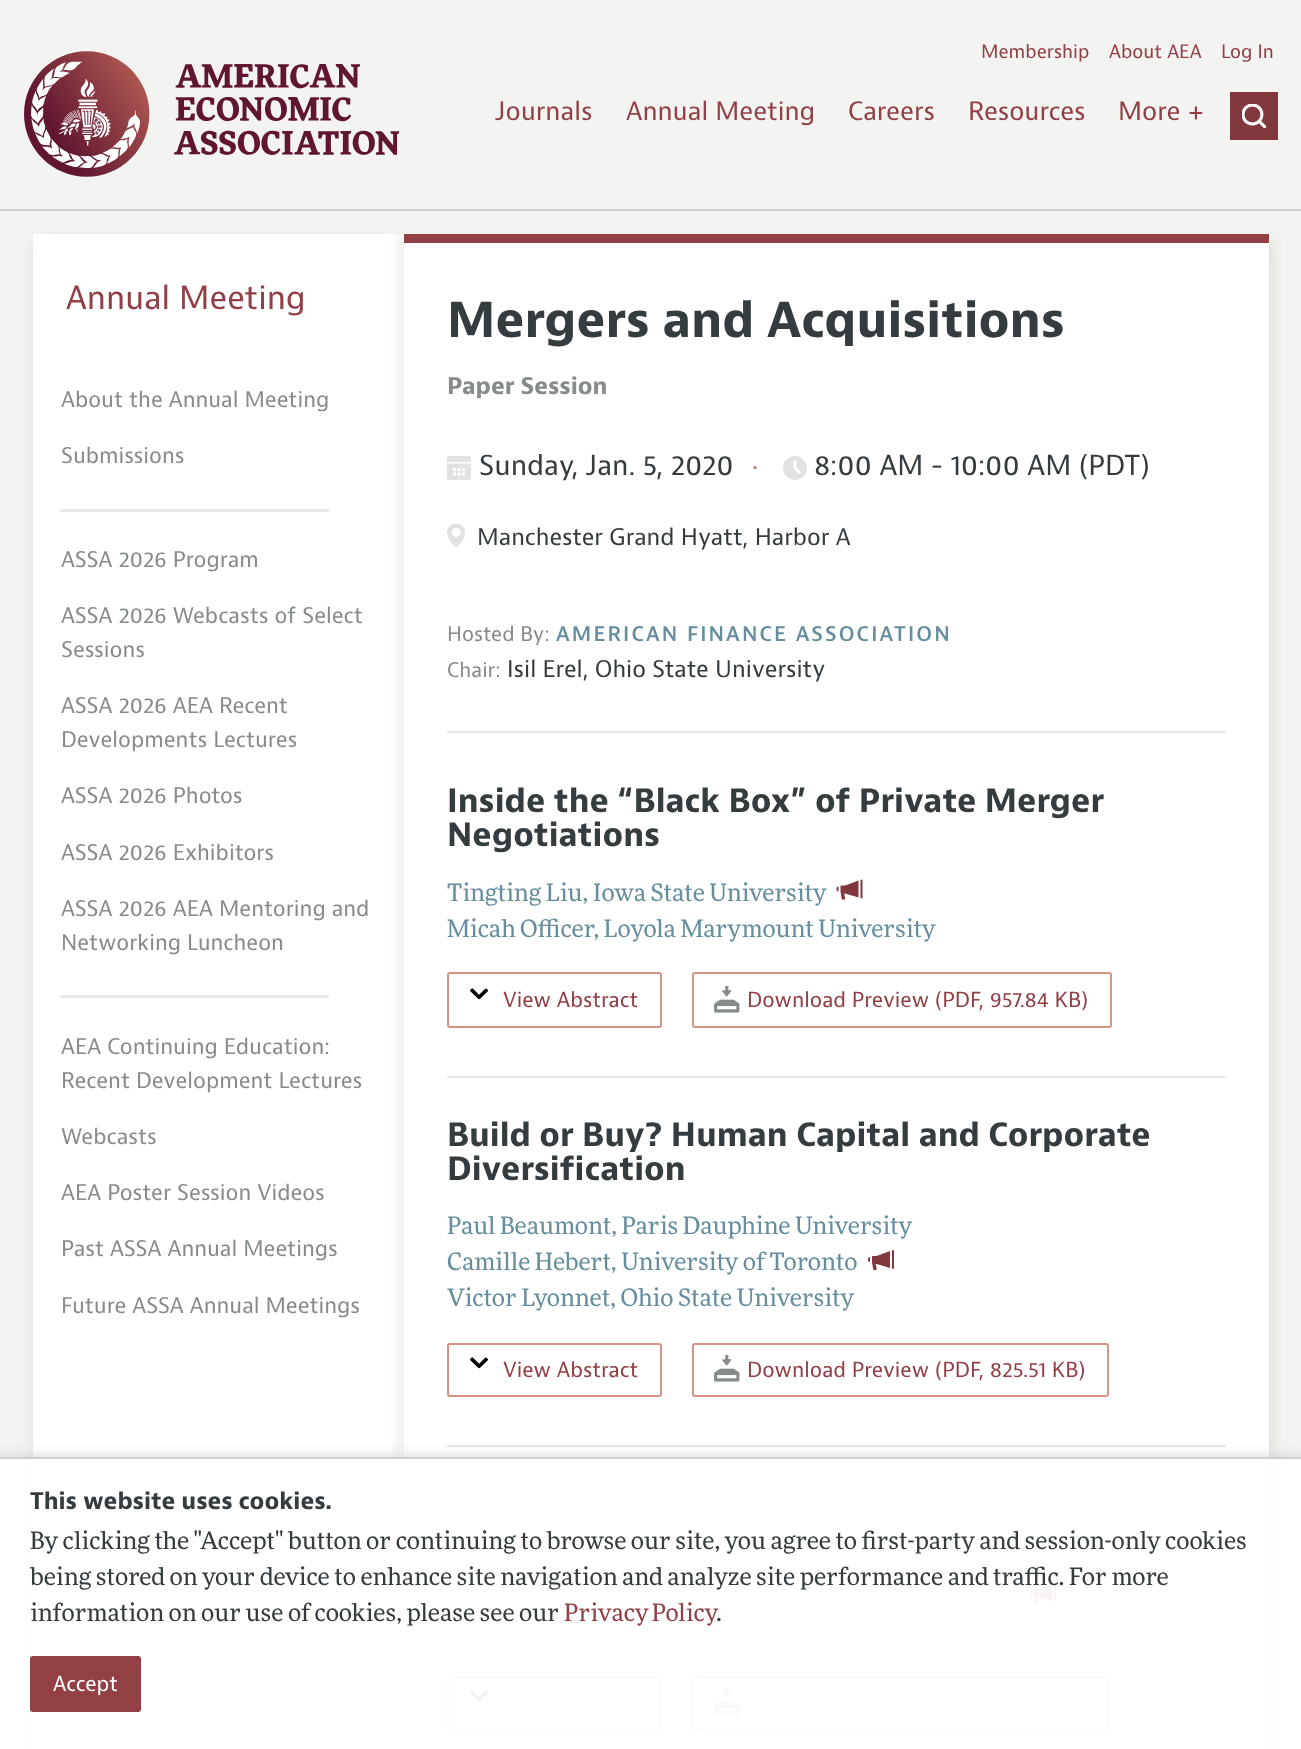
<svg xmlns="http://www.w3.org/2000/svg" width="1301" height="1749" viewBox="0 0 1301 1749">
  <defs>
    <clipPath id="clip1"><path d="M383 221H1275V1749H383ZM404 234H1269V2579H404Z" clip-rule="evenodd"/></clipPath>
    <clipPath id="clip2"><path d="M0 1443h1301v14H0z"/></clipPath>
  </defs>
  <rect width="100%" height="100%" fill="#f3f3f1"/>
  <image x="24" y="51" width="375" height="126" href="img/1.png"/>
  <path d="M1230 92h48v48H1230z" fill="#80383e"/>
  <image x="1242" y="104" width="24" height="24" href="img/2.png"/>
  <path d="M0 209h1301v2H0z" fill="#cfcfcf"/>
  <path d="M35 242h1236v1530H35z" fill="#dbdbd6" filter="blur(7.5px)"/>
  <path d="M33 234h1236v1515H33z" fill="#fff"/>
  <path d="M60 509h269v3H60z" fill="#e8e8e8"/>
  <path d="M60 995h269v3H60z" fill="#e8e8e8"/>
  <g clip-path="url(#clip1)">
    <path d="M396 234h866v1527H396z" fill="#f3f3f1" filter="blur(4px)"/>
  </g>
  <path d="M404 234h865v9H404z" fill="#924046"/>
  <image x="447" y="456" width="24" height="24" href="img/3.png"/>
  <image x="783" y="456" width="24" height="24" href="img/4.png"/>
  <image x="447" y="524" width="18" height="24" href="img/5.png"/>
  <path d="M447 731h779v2H447z" fill="#e8e8e8"/>
  <path d="M447 1076h779v2H447z" fill="#e8e8e8"/>
  <image x="836" y="879" width="27" height="21" href="img/6.png"/>
  <rect x="448" y="973" width="213" height="54" rx="2" fill="none" stroke="#d59285" stroke-width="2"/>
  <image x="470" y="988" width="19" height="12" href="img/7.png"/>
  <rect x="693" y="973" width="418" height="54" rx="2" fill="none" stroke="#d59285" stroke-width="2"/>
  <image x="714" y="986" width="26" height="27" href="img/8.png"/>
  <path d="M447 1445h779v2H447z" fill="#e8e8e8"/>
  <image x="868" y="1250" width="26" height="20" href="img/9.png"/>
  <rect x="448" y="1344" width="213" height="52" rx="2" fill="none" stroke="#d59285" stroke-width="2"/>
  <image x="470" y="1357" width="19" height="12" href="img/7.png"/>
  <rect x="693" y="1344" width="415" height="52" rx="2" fill="none" stroke="#d59285" stroke-width="2"/>
  <image x="714" y="1355" width="26" height="27" href="img/8.png"/>
  <image x="1030" y="1583" width="26" height="20" href="img/9.png"/>
  <rect x="448" y="1677" width="213" height="53" rx="2" fill="none" stroke="#d59285" stroke-width="2"/>
  <image x="470" y="1690" width="19" height="12" href="img/7.png"/>
  <rect x="693" y="1677" width="415" height="53" rx="2" fill="none" stroke="#d59285" stroke-width="2"/>
  <image x="714" y="1688" width="26" height="27" href="img/8.png"/>
  <g clip-path="url(#clip2)">
    <path d="M-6 1458h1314v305H-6z" fill="#ccccccf2" filter="blur(7.5px)"/>
  </g>
  <path d="M0 1459h1301v290H0z" fill="#fffffff2"/>
  <path d="M0 1457h1301v2H0z" fill="#cfcfcf"/>
  <rect x="31" y="1657" width="109" height="54" rx="2" fill="#924046" stroke="#924046" stroke-width="2"/>
  <g font-family="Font" font-size="19.25" fill="#924046">
    <text x="981" y="58">Membership</text>
    <text x="1109" y="58">About AEA</text>
    <text x="1221" y="58">Log In</text>
  </g>
  <g font-family="Font" font-size="26.5" fill="#924046">
    <text x="495" y="120">Journals</text>
    <text x="626" y="120">Annual Meeting</text>
    <text x="848" y="120">Careers</text>
    <text x="968" y="120">Resources</text>
    <text x="1118" y="120">More +</text>
  </g>
  <text x="66" y="309" font-family="Font" font-size="33.6" fill="#924046">Annual Meeting</text>
  <g font-family="Font" font-size="22.5" fill="#868b8c">
    <text x="61" y="407">About the Annual Meeting</text>
    <text x="61" y="463">Submissions</text>
    <text x="61" y="567">ASSA 2026 Program</text>
    <text x="61" y="623">ASSA 2026 Webcasts of Select</text>
    <text x="61" y="657">Sessions</text>
    <text x="61" y="713">ASSA 2026 AEA Recent</text>
    <text x="61" y="747">Developments Lectures</text>
    <text x="61" y="803">ASSA 2026 Photos</text>
    <text x="61" y="860">ASSA 2026 Exhibitors</text>
    <text x="61" y="916">ASSA 2026 AEA Mentoring and</text>
    <text x="61" y="950">Networking Luncheon</text>
    <text x="61" y="1054">AEA Continuing Education:</text>
    <text x="61" y="1088">Recent Development Lectures</text>
    <text x="61" y="1144">Webcasts</text>
    <text x="61" y="1200">AEA Poster Session Videos</text>
    <text x="61" y="1256">Past ASSA Annual Meetings</text>
    <text x="61" y="1313">Future ASSA Annual Meetings</text>
  </g>
  <text x="447" y="337" font-family="Font" font-size="50.4" font-weight="bold" fill="#353c3f">Mergers and Acquisitions</text>
  <text x="447" y="394" font-family="Font" font-size="24" font-weight="bold" fill="#868b8c">Paper Session</text>
  <text x="479" y="475" font-family="Font" font-size="28.75" fill="#353c3f">Sunday, Jan. 5, 2020</text>
  <text x="753" y="475" font-family="Font" font-size="28.75" fill="#c8705f">·</text>
  <text x="814" y="475" font-family="Font" font-size="28.75" fill="#353c3f">8:00 AM - 10:00 AM (PDT)</text>
  <text x="477" y="545" font-family="Font" font-size="24" fill="#353c3f">Manchester Grand Hyatt, Harbor A</text>
  <text x="447" y="641" font-family="Font" font-size="21" fill="#868b8c">Hosted By:</text>
  <text x="556" y="641" font-family="Font" font-size="21" font-weight="600" letter-spacing="2.1" fill="#668e9e">AMERICAN FINANCE ASSOCIATION</text>
  <text x="447" y="677" font-family="Font" font-size="21" fill="#868b8c">Chair:</text>
  <text x="507" y="677" font-family="Font" font-size="24" fill="#353c3f">Isil Erel, Ohio State University</text>
  <g font-family="Font" font-size="33.6" font-weight="bold" fill="#353c3f">
    <text x="447" y="812">Inside the “Black Box” of Private Merger</text>
    <text x="447" y="846">Negotiations</text>
  </g>
  <g font-family="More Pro" font-size="24" fill="#668e9e">
    <text x="447" y="901">Tingting Liu, Iowa State University</text>
    <text x="447" y="937">Micah Officer, Loyola Marymount University</text>
  </g>
  <g font-family="Font" font-size="21.6" fill="#924046">
    <text x="503" y="1007">View Abstract</text>
    <text x="747" y="1007">Download Preview (PDF, 957.84 KB)</text>
  </g>
  <g font-family="Font" font-size="33.6" font-weight="bold" fill="#353c3f">
    <text x="447" y="1146">Build or Buy? Human Capital and Corporate</text>
    <text x="447" y="1180">Diversification</text>
  </g>
  <g font-family="More Pro" font-size="24" fill="#668e9e">
    <text x="447" y="1234">Paul Beaumont, Paris Dauphine University</text>
    <text x="447" y="1270">Camille Hebert, University of Toronto</text>
    <text x="447" y="1306">Victor Lyonnet, Ohio State University</text>
  </g>
  <g font-family="Font" font-size="21.6" fill="#924046">
    <text x="503" y="1377">View Abstract</text>
    <text x="747" y="1377">Download Preview (PDF, 825.51 KB)</text>
  </g>
  <text x="30" y="1509" font-family="Font" font-size="24" font-weight="bold" fill="#353c3f">This website uses cookies.</text>
  <g font-family="More Pro" font-size="24" fill="#353c3f">
    <text x="30" y="1549">By clicking the "Accept" button or continuing to browse our site, you agree to first-party and session-only cookies</text>
    <text x="30" y="1585">being stored on your device to enhance site navigation and analyze site performance and traffic. For more</text>
    <text x="30" y="1621">information on our use of cookies, please see our</text>
  </g>
  <text x="564" y="1621" word-spacing="-1" font-family="More Pro" font-size="24" fill="#924046">Privacy Policy</text>
  <text x="716" y="1621" font-family="More Pro" font-size="24" fill="#353c3f">.</text>
  <text x="53" y="1691" font-family="Font" font-size="21.6" fill="#fff">Accept</text>
</svg>
